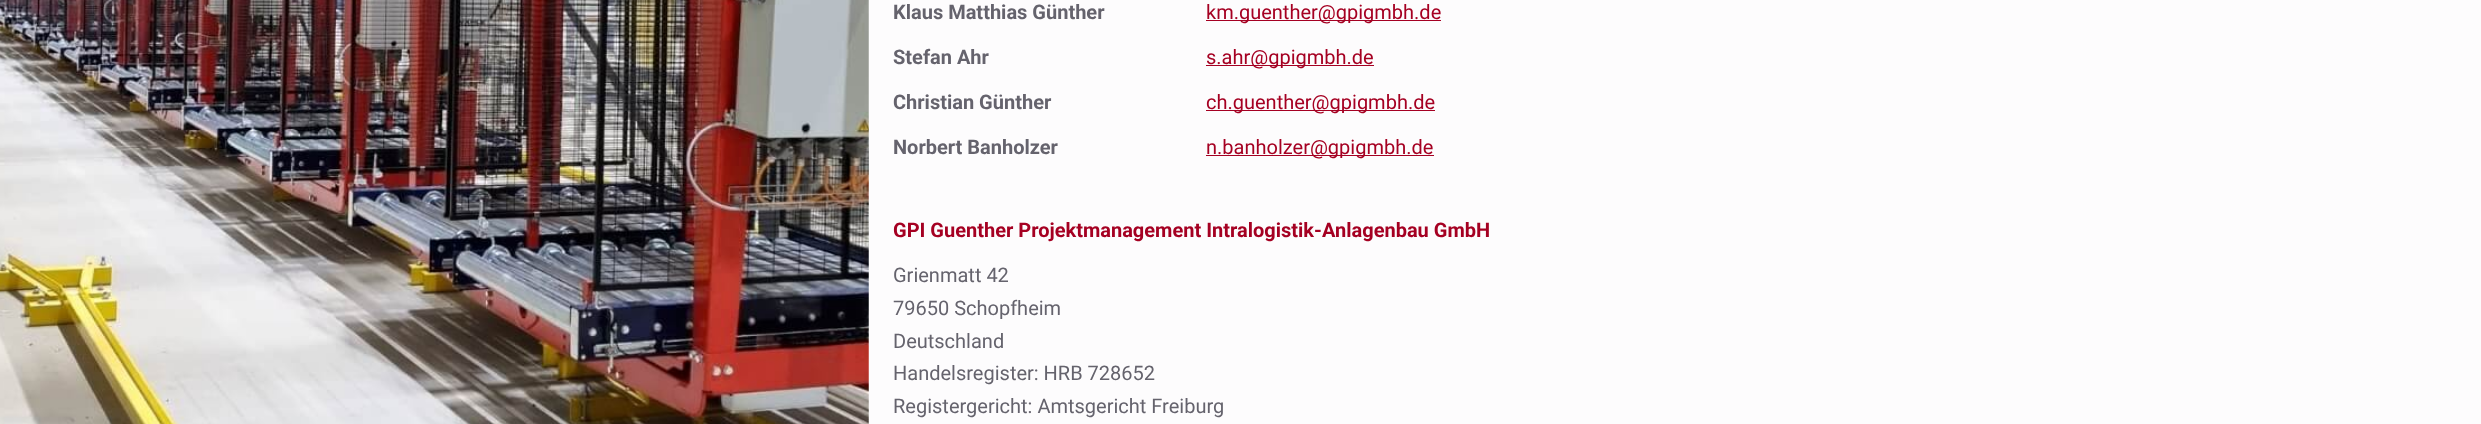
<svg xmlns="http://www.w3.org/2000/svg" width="2481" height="424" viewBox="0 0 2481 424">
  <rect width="100%" height="100%" fill="#fdfcfd"/>
  <image x="0" y="0" width="869" height="424" href="img/1.png"/>
  <path d="M1206 20h235v1H1206z" fill="#a50022"/>
  <path d="M1206 65h168v1H1206z" fill="#a50022"/>
  <path d="M1206 110h229v1H1206z" fill="#a50022"/>
  <path d="M1206 155h228v1H1206z" fill="#a50022"/>
  <text x="893" y="19" font-family="Roboto" font-size="20" font-weight="bold" fill="#65636d">Klaus Matthias Günther</text>
  <text x="1206" y="19" font-family="Roboto" font-size="20" fill="#a50022">km.guenther@gpigmbh.de</text>
  <text x="893" y="64" font-family="Roboto" font-size="20" font-weight="bold" fill="#65636d">Stefan Ahr</text>
  <text x="1206" y="64" font-family="Roboto" font-size="20" fill="#a50022">s.ahr@gpigmbh.de</text>
  <text x="893" y="109" font-family="Roboto" font-size="20" font-weight="bold" fill="#65636d">Christian Günther</text>
  <text x="1206" y="109" font-family="Roboto" font-size="20" fill="#a50022">ch.guenther@gpigmbh.de</text>
  <text x="893" y="154" font-family="Roboto" font-size="20" font-weight="bold" fill="#65636d">Norbert Banholzer</text>
  <text x="1206" y="154" font-family="Roboto" font-size="20" fill="#a50022">n.banholzer@gpigmbh.de</text>
  <text x="893" y="237" font-family="Roboto" font-size="20" font-weight="bold" fill="#a50022">GPI Guenther Projektmanagement Intralogistik-Anlagenbau GmbH</text>
  <g font-family="Roboto" font-size="20" fill="#65636d">
    <text x="893" y="282">Grienmatt 42</text>
    <text x="893" y="315">79650 Schopfheim</text>
    <text x="893" y="348">Deutschland</text>
    <text x="893" y="380">Handelsregister: HRB 728652</text>
    <text x="893" y="413">Registergericht: Amtsgericht Freiburg</text>
  </g>
</svg>
